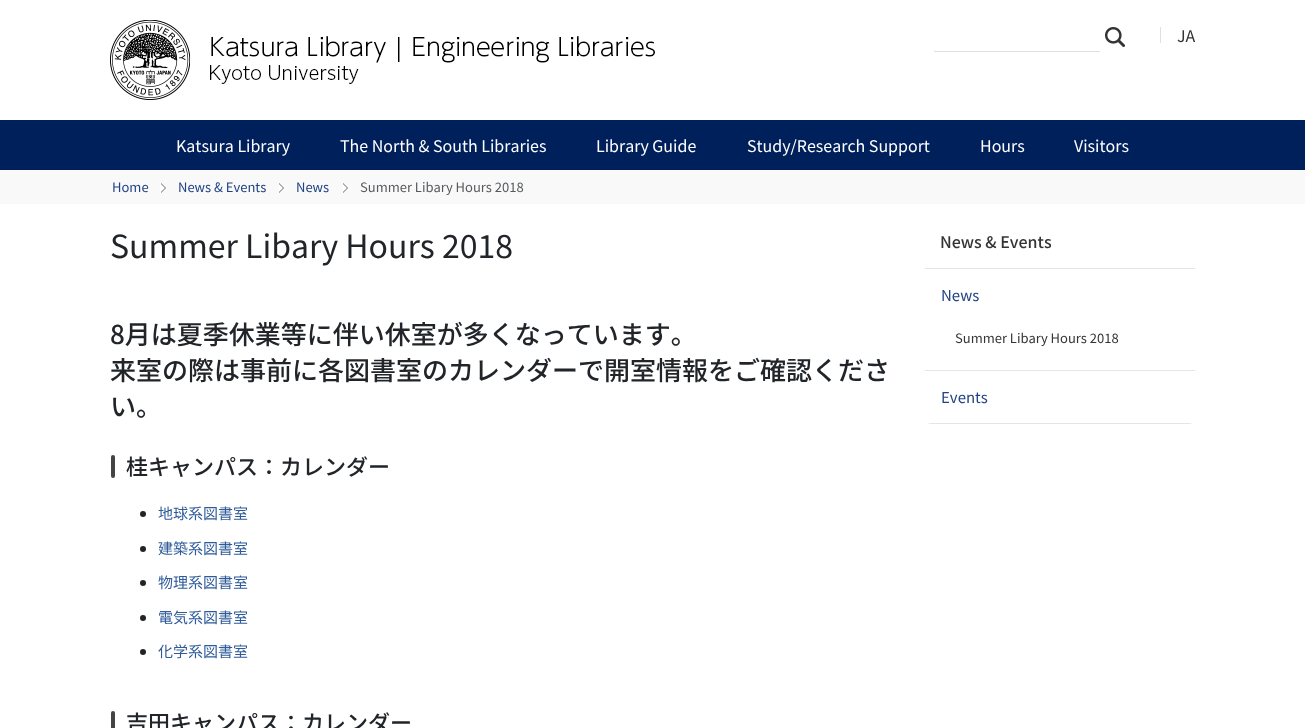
<svg xmlns="http://www.w3.org/2000/svg" width="1305" height="728" viewBox="0 0 1305 728">
  <style>*{font-kerning:none!important;font-variant-ligatures:none!important}</style>
  <defs>
    <clipPath id="clip1"><rect x="925" y="214" width="270" height="210" rx="6"/></clipPath>
  </defs>
  <rect width="100%" height="100%" fill="#fff"/>
  <image x="110" y="20" width="545" height="80" href="img/1.png"/>
  <path d="M1160 27h1v16H1160z" fill="#e0e0e0"/>
  <path d="M0 120h1305v50H0z" fill="#00205b"/>
  <image x="1105" y="27" width="20" height="20" href="img/2.png"/>
  <path d="M934 51h166v1H934z" fill="#e0e0e0"/>
  <path d="M0 170h1305v34H0z" fill="#f9f9f9"/>
  <path d="M161 193V183L166 188Z" fill="#696969"/>
  <path d="M160 193V183L165 188Z" fill="#fff"/>
  <path d="M279 193V183L284 188Z" fill="#696969"/>
  <path d="M278 193V183L283 188Z" fill="#fff"/>
  <path d="M343 193V183L348 188Z" fill="#696969"/>
  <path d="M342 193V183L347 188Z" fill="#fff"/>
  <rect x="111" y="455" width="4" height="23" rx="2" fill="#444"/>
  <circle cx="143" cy="514" r="3" fill="#212529"/>
  <circle cx="143" cy="549" r="3" fill="#212529"/>
  <circle cx="143" cy="583" r="3" fill="#212529"/>
  <circle cx="143" cy="618" r="3" fill="#212529"/>
  <circle cx="143" cy="652" r="3" fill="#212529"/>
  <rect x="111" y="711" width="4" height="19" rx="2" fill="#444"/>
  <path d="M925 268h270v1H925z" fill="#e5e5e5"/>
  <path d="M925 370h270v1H925z" fill="#e5e5e5"/>
  <g clip-path="url(#clip1)">
    <path d="M925 423h270v1H925z" fill="#e5e5e5"/>
  </g>
  <text x="1177" y="42" font-family="Noto Sans JP" font-size="16" fill="#343434">JA</text>
  <g font-family="Noto Sans JP" font-size="16" fill="#fff">
    <text x="176" y="152">Katsura Library</text>
    <text x="340" y="152">The North &amp; South Libraries</text>
    <text x="596" y="152">Library Guide</text>
    <text x="747" y="152">Study/Research Support</text>
    <text x="980" y="152">Hours</text>
    <text x="1074" y="152">Visitors</text>
  </g>
  <g font-family="Noto Sans JP" font-size="13" fill="#214384">
    <text x="112" y="192">Home</text>
    <text x="178" y="192">News &amp; Events</text>
    <text x="296" y="192">News</text>
  </g>
  <text x="360" y="192" font-family="Noto Sans JP" font-size="13" fill="#575a5d">Summer Libary Hours 2018</text>
  <text x="110" y="258" font-family="Noto Sans JP" font-size="32" fill="#212529">Summer Libary Hours 2018</text>
  <g font-family="Noto Sans JP" font-size="26" font-weight="500" fill="#212529">
    <text x="110" y="344">8月は夏季休業等に伴い休室が多くなっています。</text>
    <text x="110" y="380">来室の際は事前に各図書室のカレンダーで開室情報をご確認くださ</text>
    <text x="110" y="416">い。</text>
  </g>
  <text x="126" y="475" font-family="Noto Sans JP" font-size="22" font-weight="500" fill="#212529">桂キャンパス：カレンダー</text>
  <g font-family="Noto Sans JP" font-size="15" fill="#2e5b99">
    <text x="158" y="519">地球系図書室</text>
    <text x="158" y="554">建築系図書室</text>
    <text x="158" y="588">物理系図書室</text>
    <text x="158" y="623">電気系図書室</text>
    <text x="158" y="657">化学系図書室</text>
  </g>
  <text x="126" y="731" font-family="Noto Sans JP" font-size="22" font-weight="500" fill="#212529">吉田キャンパス：カレンダー</text>
  <text x="940" y="248" font-family="Noto Sans JP" font-size="16" font-weight="500" fill="#343434">News &amp; Events</text>
  <text x="941" y="301" font-family="Noto Sans JP" font-size="15" fill="#214384">News</text>
  <text x="955" y="343" font-family="Noto Sans JP" font-size="13" fill="#343434">Summer Libary Hours 2018</text>
  <text x="941" y="403" font-family="Noto Sans JP" font-size="15" fill="#214384">Events</text>
</svg>
